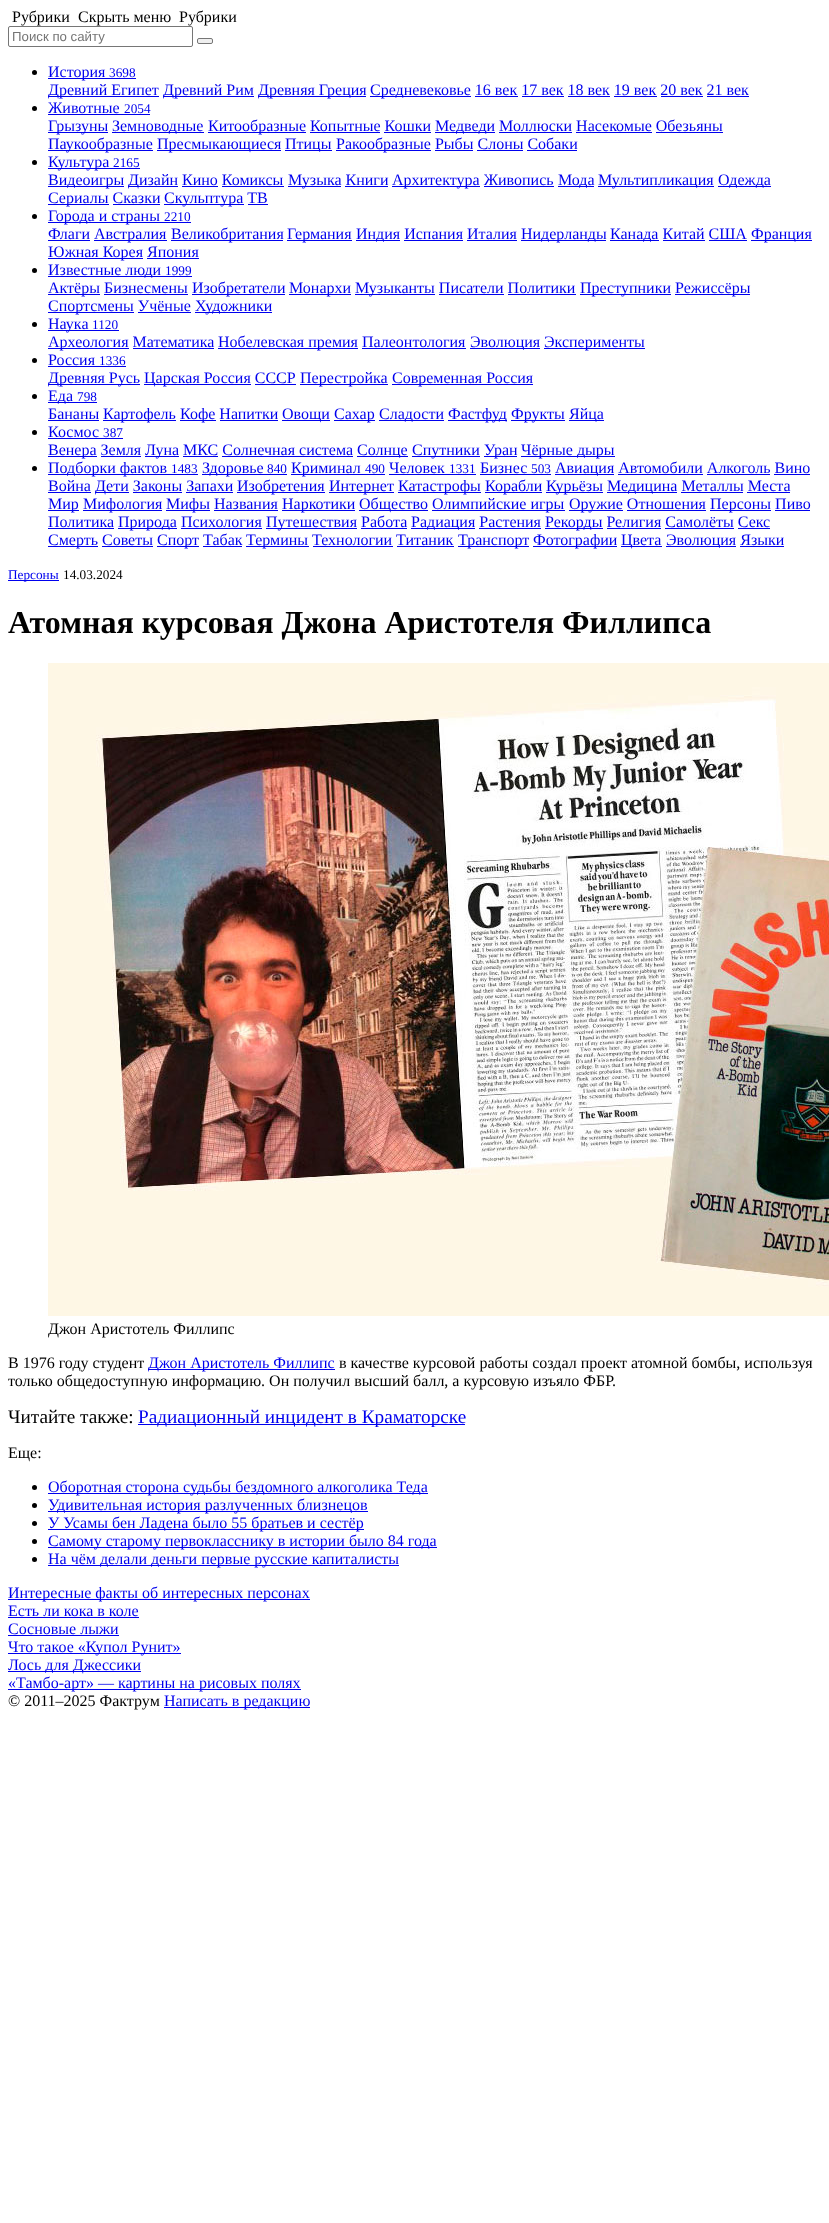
<svg xmlns="http://www.w3.org/2000/svg" width="829" height="2223" viewBox="0 0 829 2223">
  <rect width="100%" height="100%" fill="#fff"/>
  <rect x="8.5" y="26.5" width="184" height="20" rx="1.5" fill="none" stroke="#767676"/>
  <rect x="197.5" y="38.5" width="15" height="5" rx="1.5" fill="#efefef" stroke="#767676"/>
  <circle cx="34.5" cy="72.5" r="2.5" fill="#000"/>
  <path d="M48 78h88v1H48z" fill="#00e"/>
  <path d="M48 96h111v1H48z" fill="#00e"/>
  <path d="M163 96h91v1H163z" fill="#00e"/>
  <path d="M258 96h108v1H258z" fill="#00e"/>
  <path d="M370 96h101v1H370z" fill="#00e"/>
  <path d="M475 96h43v1H475z" fill="#00e"/>
  <path d="M522 96h42v1H522z" fill="#00e"/>
  <path d="M568 96h42v1H568z" fill="#00e"/>
  <path d="M614 96h43v1H614z" fill="#00e"/>
  <path d="M661 96h42v1H661z" fill="#00e"/>
  <path d="M707 96h42v1H707z" fill="#00e"/>
  <circle cx="34.5" cy="108.5" r="2.5" fill="#000"/>
  <path d="M48 114h102v1H48z" fill="#00e"/>
  <path d="M48 132h60v1H48z" fill="#00e"/>
  <path d="M112 132h92v1H112z" fill="#00e"/>
  <path d="M208 132h98v1H208z" fill="#00e"/>
  <path d="M435 132h60v1H435z" fill="#00e"/>
  <path d="M310 132h70v1H310z" fill="#00e"/>
  <path d="M384 132h47v1H384z" fill="#00e"/>
  <path d="M499 132h73v1H499z" fill="#00e"/>
  <path d="M576 132h76v1H576z" fill="#00e"/>
  <path d="M656 132h67v1H656z" fill="#00e"/>
  <path d="M48 150h105v1H48z" fill="#00e"/>
  <path d="M157 150h124v1H157z" fill="#00e"/>
  <path d="M285 150h47v1H285z" fill="#00e"/>
  <path d="M336 150h95v1H336z" fill="#00e"/>
  <path d="M435 150h38v1H435z" fill="#00e"/>
  <path d="M477 150h46v1H477z" fill="#00e"/>
  <path d="M527 150h50v1H527z" fill="#00e"/>
  <circle cx="34.5" cy="162.5" r="2.5" fill="#000"/>
  <path d="M48 168h92v1H48z" fill="#00e"/>
  <path d="M48 186h76v1H48z" fill="#00e"/>
  <path d="M128 186h50v1H128z" fill="#00e"/>
  <path d="M288 186h53v1H288z" fill="#00e"/>
  <path d="M392 186h88v1H392z" fill="#00e"/>
  <path d="M558 186h36v1H558z" fill="#00e"/>
  <path d="M598 186h116v1H598z" fill="#00e"/>
  <path d="M718 186h53v1H718z" fill="#00e"/>
  <path d="M182 186h36v1H182z" fill="#00e"/>
  <path d="M222 186h62v1H222z" fill="#00e"/>
  <path d="M345 186h43v1H345z" fill="#00e"/>
  <path d="M484 186h70v1H484z" fill="#00e"/>
  <path d="M48 204h61v1H48z" fill="#00e"/>
  <path d="M164 204h80v1H164z" fill="#00e"/>
  <path d="M113 204h47v1H113z" fill="#00e"/>
  <path d="M248 204h20v1H248z" fill="#00e"/>
  <circle cx="34.5" cy="216.5" r="2.5" fill="#000"/>
  <path d="M48 222h143v1H48z" fill="#00e"/>
  <path d="M48 240h42v1H48z" fill="#00e"/>
  <path d="M94 240h73v1H94z" fill="#00e"/>
  <path d="M171 240h112v1H171z" fill="#00e"/>
  <path d="M287 240h65v1H287z" fill="#00e"/>
  <path d="M356 240h44v1H356z" fill="#00e"/>
  <path d="M521 240h85v1H521z" fill="#00e"/>
  <path d="M610 240h49v1H610z" fill="#00e"/>
  <path d="M751 240h61v1H751z" fill="#00e"/>
  <path d="M404 240h59v1H404z" fill="#00e"/>
  <path d="M467 240h50v1H467z" fill="#00e"/>
  <path d="M663 240h42v1H663z" fill="#00e"/>
  <path d="M709 240h38v1H709z" fill="#00e"/>
  <path d="M48 258h95v1H48z" fill="#00e"/>
  <path d="M147 258h52v1H147z" fill="#00e"/>
  <circle cx="34.5" cy="270.5" r="2.5" fill="#000"/>
  <path d="M48 276h144v1H48z" fill="#00e"/>
  <path d="M48 294h52v1H48z" fill="#00e"/>
  <path d="M192 294h93v1H192z" fill="#00e"/>
  <path d="M289 294h62v1H289z" fill="#00e"/>
  <path d="M355 294h80v1H355z" fill="#00e"/>
  <path d="M580 294h91v1H580z" fill="#00e"/>
  <path d="M675 294h75v1H675z" fill="#00e"/>
  <path d="M104 294h84v1H104z" fill="#00e"/>
  <path d="M439 294h65v1H439z" fill="#00e"/>
  <path d="M508 294h68v1H508z" fill="#00e"/>
  <path d="M48 312h86v1H48z" fill="#00e"/>
  <path d="M195 312h77v1H195z" fill="#00e"/>
  <path d="M138 312h53v1H138z" fill="#00e"/>
  <circle cx="34.5" cy="324.5" r="2.5" fill="#000"/>
  <path d="M48 330h71v1H48z" fill="#00e"/>
  <path d="M48 348h81v1H48z" fill="#00e"/>
  <path d="M218 348h140v1H218z" fill="#00e"/>
  <path d="M470 348h70v1H470z" fill="#00e"/>
  <path d="M544 348h101v1H544z" fill="#00e"/>
  <path d="M133 348h81v1H133z" fill="#00e"/>
  <path d="M362 348h104v1H362z" fill="#00e"/>
  <circle cx="34.5" cy="360.5" r="2.5" fill="#000"/>
  <path d="M48 366h78v1H48z" fill="#00e"/>
  <path d="M48 384h92v1H48z" fill="#00e"/>
  <path d="M144 384h107v1H144z" fill="#00e"/>
  <path d="M300 384h88v1H300z" fill="#00e"/>
  <path d="M392 384h141v1H392z" fill="#00e"/>
  <path d="M255 384h41v1H255z" fill="#00e"/>
  <circle cx="34.5" cy="396.5" r="2.5" fill="#000"/>
  <path d="M48 402h49v1H48z" fill="#00e"/>
  <path d="M48 420h51v1H48z" fill="#00e"/>
  <path d="M103 420h73v1H103z" fill="#00e"/>
  <path d="M180 420h36v1H180z" fill="#00e"/>
  <path d="M282 420h48v1H282z" fill="#00e"/>
  <path d="M334 420h41v1H334z" fill="#00e"/>
  <path d="M379 420h65v1H379z" fill="#00e"/>
  <path d="M448 420h59v1H448z" fill="#00e"/>
  <path d="M511 420h54v1H511z" fill="#00e"/>
  <path d="M569 420h35v1H569z" fill="#00e"/>
  <path d="M220 420h58v1H220z" fill="#00e"/>
  <circle cx="34.5" cy="432.5" r="2.5" fill="#000"/>
  <path d="M48 438h75v1H48z" fill="#00e"/>
  <path d="M48 456h49v1H48z" fill="#00e"/>
  <path d="M145 456h34v1H145z" fill="#00e"/>
  <path d="M357 456h51v1H357z" fill="#00e"/>
  <path d="M412 456h68v1H412z" fill="#00e"/>
  <path d="M484 456h33v1H484z" fill="#00e"/>
  <path d="M521 456h94v1H521z" fill="#00e"/>
  <path d="M101 456h40v1H101z" fill="#00e"/>
  <path d="M183 456h35v1H183z" fill="#00e"/>
  <path d="M222 456h131v1H222z" fill="#00e"/>
  <circle cx="34.5" cy="468.5" r="2.5" fill="#000"/>
  <path d="M48 474h150v1H48z" fill="#00e"/>
  <path d="M202 474h85v1H202z" fill="#00e"/>
  <path d="M291 474h94v1H291z" fill="#00e"/>
  <path d="M389 474h87v1H389z" fill="#00e"/>
  <path d="M480 474h71v1H480z" fill="#00e"/>
  <path d="M555 474h59v1H555z" fill="#00e"/>
  <path d="M618 474h85v1H618z" fill="#00e"/>
  <path d="M707 474h63v1H707z" fill="#00e"/>
  <path d="M774 474h36v1H774z" fill="#00e"/>
  <path d="M48 492h43v1H48z" fill="#00e"/>
  <path d="M95 492h34v1H95z" fill="#00e"/>
  <path d="M237 492h88v1H237z" fill="#00e"/>
  <path d="M329 492h65v1H329z" fill="#00e"/>
  <path d="M398 492h83v1H398z" fill="#00e"/>
  <path d="M485 492h57v1H485z" fill="#00e"/>
  <path d="M546 492h57v1H546z" fill="#00e"/>
  <path d="M607 492h70v1H607z" fill="#00e"/>
  <path d="M133 492h49v1H133z" fill="#00e"/>
  <path d="M186 492h47v1H186z" fill="#00e"/>
  <path d="M681 492h62v1H681z" fill="#00e"/>
  <path d="M747 492h43v1H747z" fill="#00e"/>
  <path d="M48 510h31v1H48z" fill="#00e"/>
  <path d="M83 510h79v1H83z" fill="#00e"/>
  <path d="M166 510h44v1H166z" fill="#00e"/>
  <path d="M282 510h73v1H282z" fill="#00e"/>
  <path d="M359 510h69v1H359z" fill="#00e"/>
  <path d="M432 510h133v1H432z" fill="#00e"/>
  <path d="M569 510h54v1H569z" fill="#00e"/>
  <path d="M710 510h61v1H710z" fill="#00e"/>
  <path d="M214 510h64v1H214z" fill="#00e"/>
  <path d="M627 510h79v1H627z" fill="#00e"/>
  <path d="M775 510h35v1H775z" fill="#00e"/>
  <path d="M48 528h66v1H48z" fill="#00e"/>
  <path d="M118 528h59v1H118z" fill="#00e"/>
  <path d="M266 528h91v1H266z" fill="#00e"/>
  <path d="M411 528h64v1H411z" fill="#00e"/>
  <path d="M545 528h58v1H545z" fill="#00e"/>
  <path d="M181 528h81v1H181z" fill="#00e"/>
  <path d="M361 528h46v1H361z" fill="#00e"/>
  <path d="M479 528h62v1H479z" fill="#00e"/>
  <path d="M607 528h54v1H607z" fill="#00e"/>
  <path d="M665 528h69v1H665z" fill="#00e"/>
  <path d="M738 528h32v1H738z" fill="#00e"/>
  <path d="M48 546h50v1H48z" fill="#00e"/>
  <path d="M157 546h42v1H157z" fill="#00e"/>
  <path d="M246 546h63v1H246z" fill="#00e"/>
  <path d="M458 546h71v1H458z" fill="#00e"/>
  <path d="M533 546h84v1H533z" fill="#00e"/>
  <path d="M621 546h41v1H621z" fill="#00e"/>
  <path d="M666 546h70v1H666z" fill="#00e"/>
  <path d="M102 546h51v1H102z" fill="#00e"/>
  <path d="M203 546h39v1H203z" fill="#00e"/>
  <path d="M313 546h80v1H313z" fill="#00e"/>
  <path d="M397 546h57v1H397z" fill="#00e"/>
  <path d="M740 546h44v1H740z" fill="#00e"/>
  <path d="M8 580h51v1H8z" fill="#00e"/>
  <image x="48" y="663" width="781" height="653" href="img/1.png"/>
  <path d="M148 1369h187v1H148z" fill="#00e"/>
  <path d="M138 1424h327v1H138z" fill="#00e"/>
  <circle cx="34.5" cy="1487.5" r="2.5" fill="#000"/>
  <path d="M48 1493h380v1H48z" fill="#00e"/>
  <circle cx="34.5" cy="1505.5" r="2.5" fill="#000"/>
  <path d="M48 1511h320v1H48z" fill="#00e"/>
  <circle cx="34.5" cy="1523.5" r="2.5" fill="#000"/>
  <path d="M48 1529h316v1H48z" fill="#00e"/>
  <circle cx="34.5" cy="1541.5" r="2.5" fill="#000"/>
  <path d="M48 1547h389v1H48z" fill="#00e"/>
  <circle cx="34.5" cy="1559.5" r="2.5" fill="#000"/>
  <path d="M48 1565h351v1H48z" fill="#00e"/>
  <path d="M8 1599h302v1H8z" fill="#00e"/>
  <path d="M8 1617h131v1H8z" fill="#00e"/>
  <path d="M8 1635h111v1H8z" fill="#00e"/>
  <path d="M8 1653h173v1H8z" fill="#00e"/>
  <path d="M8 1671h133v1H8z" fill="#00e"/>
  <path d="M8 1689h293v1H8z" fill="#00e"/>
  <path d="M164 1707h146v1H164z" fill="#00e"/>
  <g font-family="Liberation Serif" font-size="16" fill="#000">
    <text x="12" y="22">Рубрики</text>
    <text x="78" y="22">Скрыть меню</text>
    <text x="179" y="22">Рубрики</text>
  </g>
  <text x="12" y="41" font-family="Liberation Sans" font-size="13.25" fill="#757575">Поиск по сайту</text>
  <text x="48" y="77" font-family="Liberation Serif" font-size="16" fill="#00e">История</text>
  <text x="109" y="77" font-family="Liberation Serif" font-size="13.25" fill="#00e">3698</text>
  <g font-family="Liberation Serif" font-size="16" fill="#00e">
    <text x="48" y="95">Древний Египет</text>
    <text x="163" y="95">Древний Рим</text>
    <text x="258" y="95">Древняя Греция</text>
    <text x="370" y="95">Средневековье 16 век 17 век 18 век 19 век 20 век 21 век</text>
    <text x="48" y="113">Животные</text>
  </g>
  <text x="124" y="113" font-family="Liberation Serif" font-size="13.25" fill="#00e">2054</text>
  <g font-family="Liberation Serif" font-size="16" fill="#00e">
    <text x="48" y="131">Грызуны</text>
    <text x="112" y="131">Земноводные</text>
    <text x="208" y="131">Китообразные Копытные Кошки</text>
    <text x="435" y="131">Медведи Моллюски Насекомые Обезьяны</text>
    <text x="48" y="149">Паукообразные</text>
    <text x="157" y="149">Пресмыкающиеся</text>
    <text x="285" y="149">Птицы</text>
    <text x="336" y="149">Ракообразные Рыбы Слоны Собаки</text>
    <text x="48" y="167">Культура</text>
  </g>
  <text x="113" y="167" font-family="Liberation Serif" font-size="13.25" fill="#00e">2165</text>
  <g font-family="Liberation Serif" font-size="16" fill="#00e">
    <text x="48" y="185">Видеоигры</text>
    <text x="128" y="185">Дизайн Кино Комиксы</text>
    <text x="288" y="185">Музыка Книги</text>
    <text x="392" y="185">Архитектура Живопись</text>
    <text x="558" y="185">Мода</text>
    <text x="598" y="185">Мультипликация</text>
    <text x="718" y="185">Одежда</text>
    <text x="48" y="203">Сериалы Сказки</text>
    <text x="164" y="203">Скульптура ТВ</text>
    <text x="48" y="221">Города и страны</text>
  </g>
  <text x="164" y="221" font-family="Liberation Serif" font-size="13.25" fill="#00e">2210</text>
  <g font-family="Liberation Serif" font-size="16" fill="#00e">
    <text x="48" y="239">Флаги</text>
    <text x="94" y="239">Австралия</text>
    <text x="171" y="239">Великобритания</text>
    <text x="287" y="239">Германия</text>
    <text x="356" y="239">Индия Испания Италия</text>
    <text x="521" y="239">Нидерланды</text>
    <text x="610" y="239">Канада Китай США</text>
    <text x="751" y="239">Франция</text>
    <text x="48" y="257">Южная Корея Япония</text>
    <text x="48" y="275">Известные люди</text>
  </g>
  <text x="165" y="275" font-family="Liberation Serif" font-size="13.25" fill="#00e">1999</text>
  <g font-family="Liberation Serif" font-size="16" fill="#00e">
    <text x="48" y="293">Актёры Бизнесмены</text>
    <text x="192" y="293">Изобретатели</text>
    <text x="289" y="293">Монархи</text>
    <text x="355" y="293">Музыканты Писатели Политики</text>
    <text x="580" y="293">Преступники</text>
    <text x="675" y="293">Режиссёры</text>
    <text x="48" y="311">Спортсмены Учёные</text>
    <text x="195" y="311">Художники</text>
    <text x="48" y="329">Наука</text>
  </g>
  <text x="92" y="329" font-family="Liberation Serif" font-size="13.25" fill="#00e">1120</text>
  <g font-family="Liberation Serif" font-size="16" fill="#00e">
    <text x="48" y="347">Археология Математика</text>
    <text x="218" y="347">Нобелевская премия Палеонтология</text>
    <text x="470" y="347">Эволюция</text>
    <text x="544" y="347">Эксперименты</text>
    <text x="48" y="365">Россия</text>
  </g>
  <text x="99" y="365" font-family="Liberation Serif" font-size="13.25" fill="#00e">1336</text>
  <g font-family="Liberation Serif" font-size="16" fill="#00e">
    <text x="48" y="383">Древняя Русь</text>
    <text x="144" y="383">Царская Россия СССР</text>
    <text x="300" y="383">Перестройка</text>
    <text x="392" y="383">Современная Россия</text>
    <text x="48" y="401">Еда</text>
  </g>
  <text x="77" y="401" font-family="Liberation Serif" font-size="13.25" fill="#00e">798</text>
  <g font-family="Liberation Serif" font-size="16" fill="#00e">
    <text x="48" y="419">Бананы</text>
    <text x="103" y="419">Картофель</text>
    <text x="180" y="419">Кофе Напитки</text>
    <text x="282" y="419">Овощи</text>
    <text x="334" y="419">Сахар</text>
    <text x="379" y="419">Сладости</text>
    <text x="448" y="419">Фастфуд</text>
    <text x="511" y="419">Фрукты</text>
    <text x="569" y="419">Яйца</text>
    <text x="48" y="437">Космос</text>
  </g>
  <text x="103" y="437" font-family="Liberation Serif" font-size="13.25" fill="#00e">387</text>
  <g font-family="Liberation Serif" font-size="16" fill="#00e">
    <text x="48" y="455">Венера Земля</text>
    <text x="145" y="455">Луна МКС Солнечная система</text>
    <text x="357" y="455">Солнце</text>
    <text x="412" y="455">Спутники</text>
    <text x="484" y="455">Уран</text>
    <text x="521" y="455">Чёрные дыры</text>
    <text x="48" y="473">Подборки фактов</text>
  </g>
  <text x="171" y="473" font-family="Liberation Serif" font-size="13.25" fill="#00e">1483</text>
  <text x="202" y="473" font-family="Liberation Serif" font-size="16" fill="#00e">Здоровье</text>
  <text x="267" y="473" font-family="Liberation Serif" font-size="13.25" fill="#00e">840</text>
  <text x="291" y="473" font-family="Liberation Serif" font-size="16" fill="#00e">Криминал</text>
  <text x="365" y="473" font-family="Liberation Serif" font-size="13.25" fill="#00e">490</text>
  <text x="389" y="473" font-family="Liberation Serif" font-size="16" fill="#00e">Человек</text>
  <text x="449" y="473" font-family="Liberation Serif" font-size="13.25" fill="#00e">1331</text>
  <text x="480" y="473" font-family="Liberation Serif" font-size="16" fill="#00e">Бизнес</text>
  <text x="531" y="473" font-family="Liberation Serif" font-size="13.25" fill="#00e">503</text>
  <g font-family="Liberation Serif" font-size="16" fill="#00e">
    <text x="555" y="473">Авиация Автомобили Алкоголь Вино</text>
    <text x="48" y="491">Война</text>
    <text x="95" y="491">Дети Законы Запахи</text>
    <text x="237" y="491">Изобретения</text>
    <text x="329" y="491">Интернет</text>
    <text x="398" y="491">Катастрофы</text>
    <text x="485" y="491">Корабли</text>
    <text x="546" y="491">Курьёзы</text>
    <text x="607" y="491">Медицина Металлы Места</text>
    <text x="48" y="509">Мир</text>
    <text x="83" y="509">Мифология</text>
    <text x="166" y="509">Мифы Названия</text>
    <text x="282" y="509">Наркотики</text>
    <text x="359" y="509">Общество</text>
    <text x="432" y="509">Олимпийские игры</text>
    <text x="569" y="509">Оружие Отношения</text>
    <text x="710" y="509">Персоны Пиво</text>
    <text x="48" y="527">Политика</text>
    <text x="118" y="527">Природа Психология</text>
    <text x="266" y="527">Путешествия Работа</text>
    <text x="411" y="527">Радиация Растения</text>
    <text x="545" y="527">Рекорды Религия Самолёты Секс</text>
    <text x="48" y="545">Смерть Советы</text>
    <text x="157" y="545">Спорт Табак</text>
    <text x="246" y="545">Термины Технологии Титаник</text>
    <text x="458" y="545">Транспорт</text>
    <text x="533" y="545">Фотографии</text>
    <text x="621" y="545">Цвета</text>
    <text x="666" y="545">Эволюция Языки</text>
  </g>
  <text x="8" y="579" font-family="Liberation Serif" font-size="13.25" fill="#00e">Персоны</text>
  <text x="63" y="579" font-family="Liberation Serif" font-size="13.25" fill="#000">14.03.2024</text>
  <text x="8" y="633" font-family="Liberation Serif" font-size="32" font-weight="bold" fill="#000">Атомная курсовая Джона Аристотеля Филлипса</text>
  <g font-family="Liberation Serif" font-size="16" fill="#000">
    <text x="48" y="1334">Джон Аристотель Филлипс</text>
    <text x="8" y="1368">В 1976 году студент</text>
  </g>
  <text x="148" y="1368" font-family="Liberation Serif" font-size="16" fill="#00e">Джон Аристотель Филлипс</text>
  <g font-family="Liberation Serif" font-size="16" fill="#000">
    <text x="339" y="1368">в качестве курсовой работы создал проект атомной бомбы, используя</text>
    <text x="8" y="1386">только общедоступную информацию. Он получил высший балл, а курсовую изъяло ФБР.</text>
  </g>
  <text x="8" y="1423" font-family="Liberation Serif" font-size="19.25" fill="#000">Читайте также:</text>
  <text x="138" y="1423" font-family="Liberation Serif" font-size="19.25" fill="#00e">Радиационный инцидент в Краматорске</text>
  <text x="8" y="1458" font-family="Liberation Serif" font-size="16" fill="#000">Еще:</text>
  <g font-family="Liberation Serif" font-size="16" fill="#00e">
    <text x="48" y="1492">Оборотная сторона судьбы бездомного алкоголика Теда</text>
    <text x="48" y="1510">Удивительная история разлученных близнецов</text>
    <text x="48" y="1528">У Усамы бен Ладена было 55 братьев и сестёр</text>
    <text x="48" y="1546">Самому старому первокласснику в истории было 84 года</text>
    <text x="48" y="1564">На чём делали деньги первые русские капиталисты</text>
    <text x="8" y="1598">Интересные факты об интересных персонах</text>
    <text x="8" y="1616">Есть ли кока в коле</text>
    <text x="8" y="1634">Сосновые лыжи</text>
    <text x="8" y="1652">Что такое «Купол Рунит»</text>
    <text x="8" y="1670">Лось для Джессики</text>
    <text x="8" y="1688">«Тамбо-арт» — картины на рисовых полях</text>
  </g>
  <text x="8" y="1706" font-family="Liberation Serif" font-size="16" fill="#000">© 2011–2025 Фактрум</text>
  <text x="164" y="1706" font-family="Liberation Serif" font-size="16" fill="#00e">Написать в редакцию</text>
</svg>
